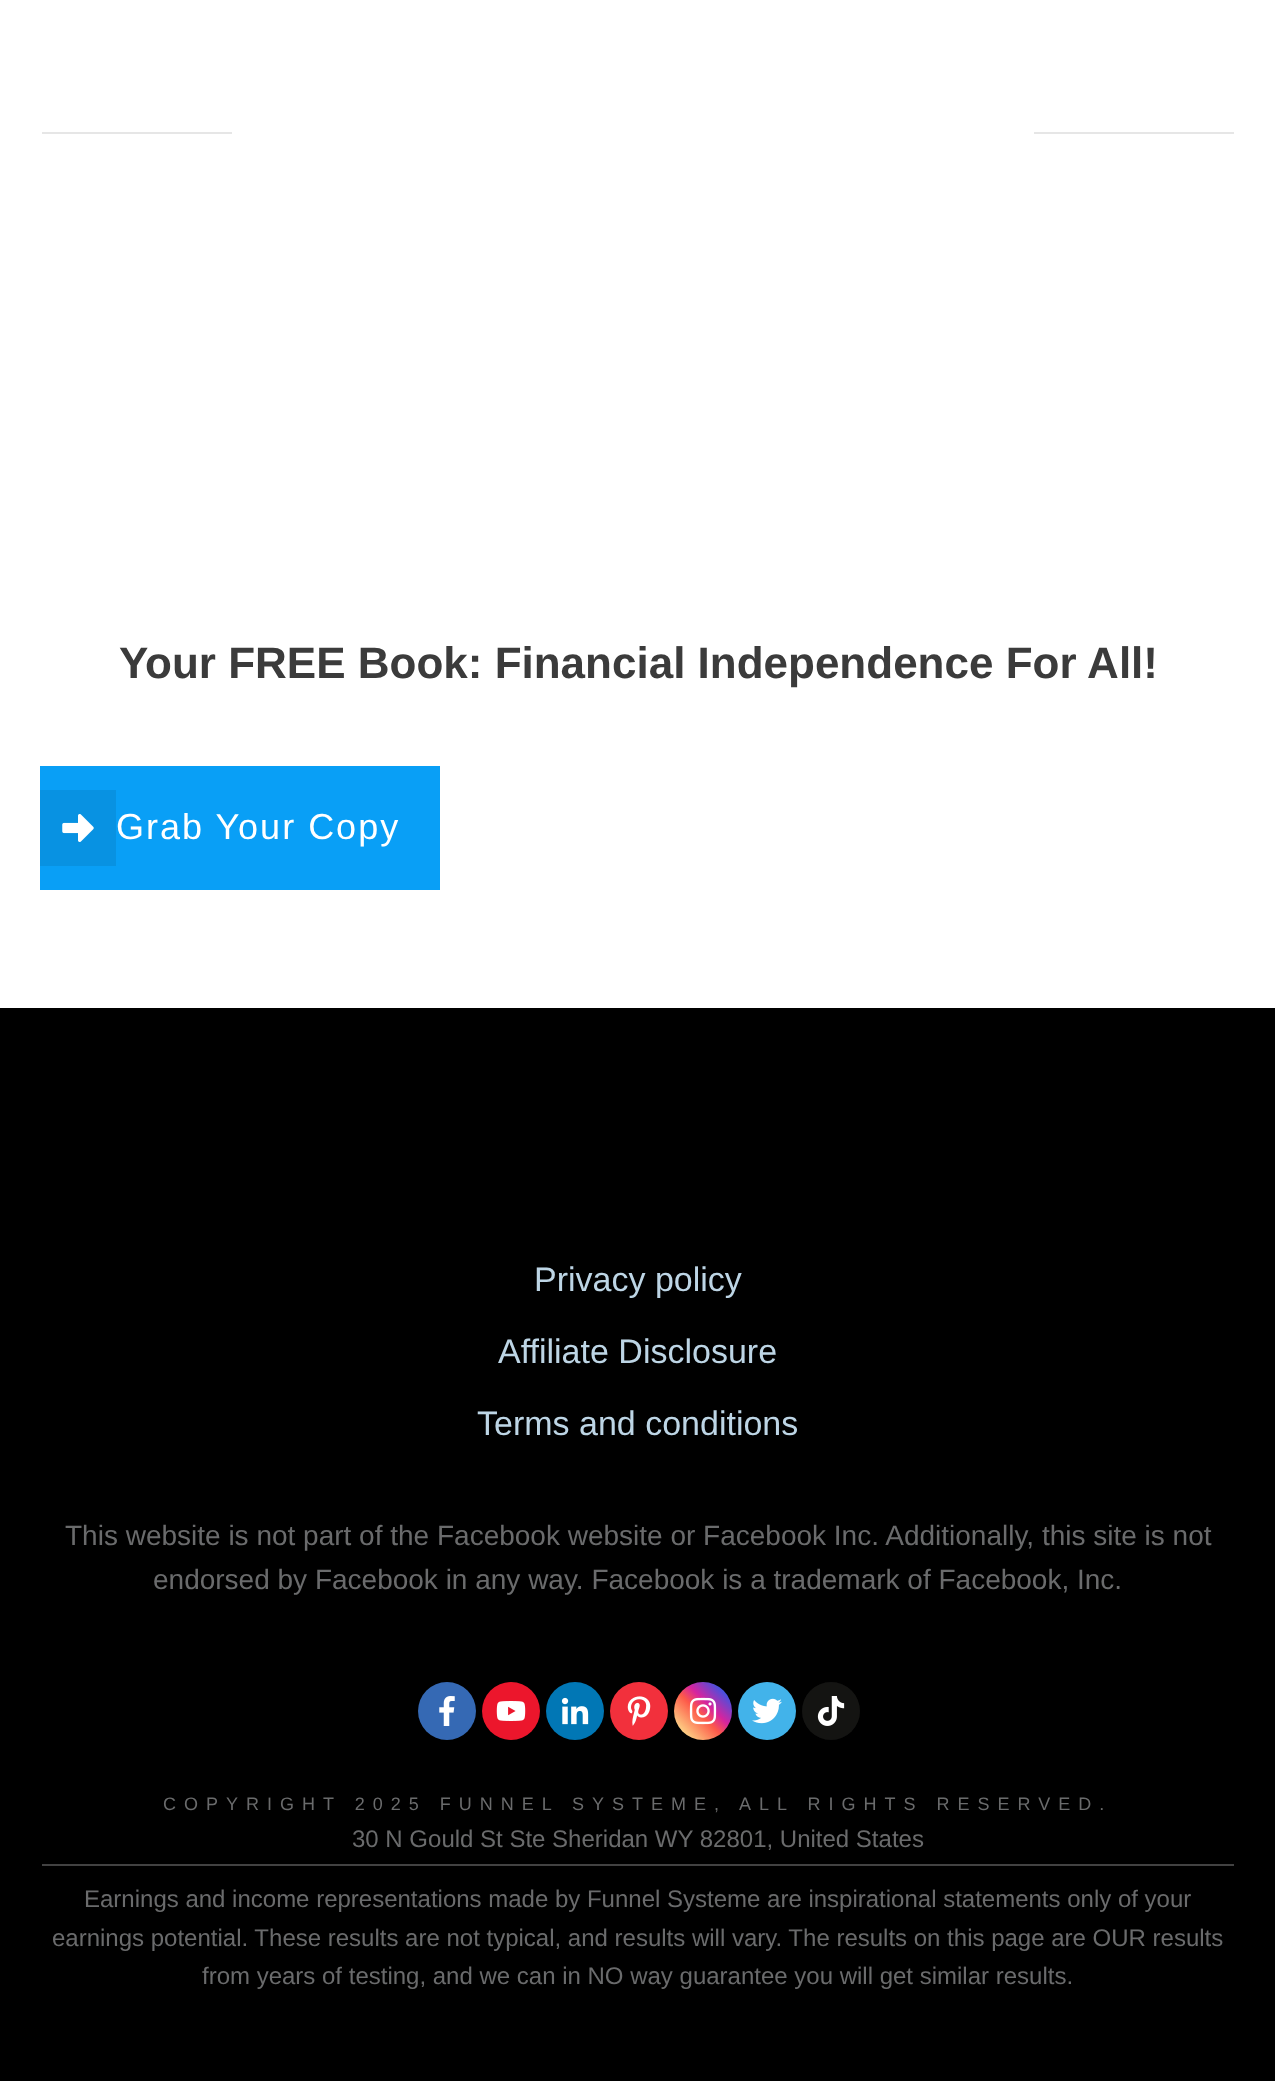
<svg xmlns="http://www.w3.org/2000/svg" width="1275" height="2081" viewBox="0 0 1275 2081">
  <defs>
    <linearGradient id="g1" gradientUnits="userSpaceOnUse" x1="674" y1="1740" x2="732" y2="1682"><stop offset="0" stop-color="#fdf497"/><stop offset="0.05" stop-color="#fdf497"/><stop offset="0.45" stop-color="#fd5949"/><stop offset="0.6" stop-color="#d6249f"/><stop offset="0.9" stop-color="#285aeb"/></linearGradient>
  </defs>
  <rect width="100%" height="100%" fill="#fff"/>
  <path d="M42 132h190v2H42z" fill="#e6e6e6"/>
  <path d="M1034 132h200v2H1034z" fill="#e6e6e6"/>
  <path d="M40 766h400v124H40z" fill="#099ff6"/>
  <path d="M40 790h76v76H40z" fill="#0892e2"/>
  <image x="62" y="814" width="32" height="28" href="img/1.png"/>
  <path d="M0 1008h1275v1073H0z" fill="#000"/>
  <circle cx="447" cy="1711" r="29" fill="#3569b4"/>
  <image x="439" y="1696" width="16" height="30" href="img/2.png"/>
  <circle cx="511" cy="1711" r="29" fill="#ec162c"/>
  <image x="496" y="1701" width="30" height="20" href="img/3.png"/>
  <circle cx="575" cy="1711" r="29" fill="#0177b5"/>
  <image x="561" y="1697" width="28" height="28" href="img/4.png"/>
  <circle cx="639" cy="1711" r="29" fill="#f2303c"/>
  <image x="627" y="1696" width="24" height="30" href="img/5.png"/>
  <circle cx="703" cy="1711" r="29" fill="url(#g1)"/>
  <image x="689" y="1697" width="28" height="28" href="img/6.png"/>
  <circle cx="767" cy="1711" r="29" fill="#42b3ea"/>
  <image x="752" y="1698" width="30" height="26" href="img/7.png"/>
  <circle cx="831" cy="1711" r="29" fill="#10100f"/>
  <circle cx="831" cy="1711" r="29" fill="#17171680"/>
  <image x="817" y="1696" width="28" height="30" href="img/8.png"/>
  <path d="M42 1864h1192v2H42z" fill="#424242"/>
  <text x="119" y="678" font-family="Liberation Sans" font-size="44" font-weight="bold" fill="#3b3b3b">Your FREE Book: Financial Independence For All!</text>
  <text x="116" y="839" font-family="Liberation Sans" font-size="36" letter-spacing="2" fill="#fff">Grab Your Copy</text>
  <g font-family="Liberation Sans" font-size="34" fill="#bdd5e5">
    <text x="534" y="1291">Privacy policy</text>
    <text x="498" y="1363">Affiliate Disclosure</text>
    <text x="477" y="1435">Terms and conditions</text>
  </g>
  <g font-family="Liberation Sans" font-size="28" fill="#6a6b6c">
    <text x="65" y="1545">This website is not part of the Facebook website or Facebook Inc. Additionally, this site is not</text>
    <text x="153" y="1589">endorsed by Facebook in any way. Facebook is a trademark of Facebook, Inc.</text>
  </g>
  <text x="163" y="1810" font-family="Liberation Sans" font-size="18" letter-spacing="8" fill="#6a6b6c">COPYRIGHT 2025 FUNNEL SYSTEME, ALL RIGHTS RESERVED.</text>
  <g font-family="Liberation Sans" font-size="24" fill="#6a6b6c">
    <text x="352" y="1847">30 N Gould St Ste Sheridan WY 82801, United States</text>
    <text x="84" y="1907">Earnings and income representations made by Funnel Systeme are inspirational statements only of your</text>
    <text x="52" y="1946">earnings potential. These results are not typical, and results will vary. The results on this page are OUR results</text>
    <text x="202" y="1984">from years of testing, and we can in NO way guarantee you will get similar results.</text>
  </g>
</svg>
